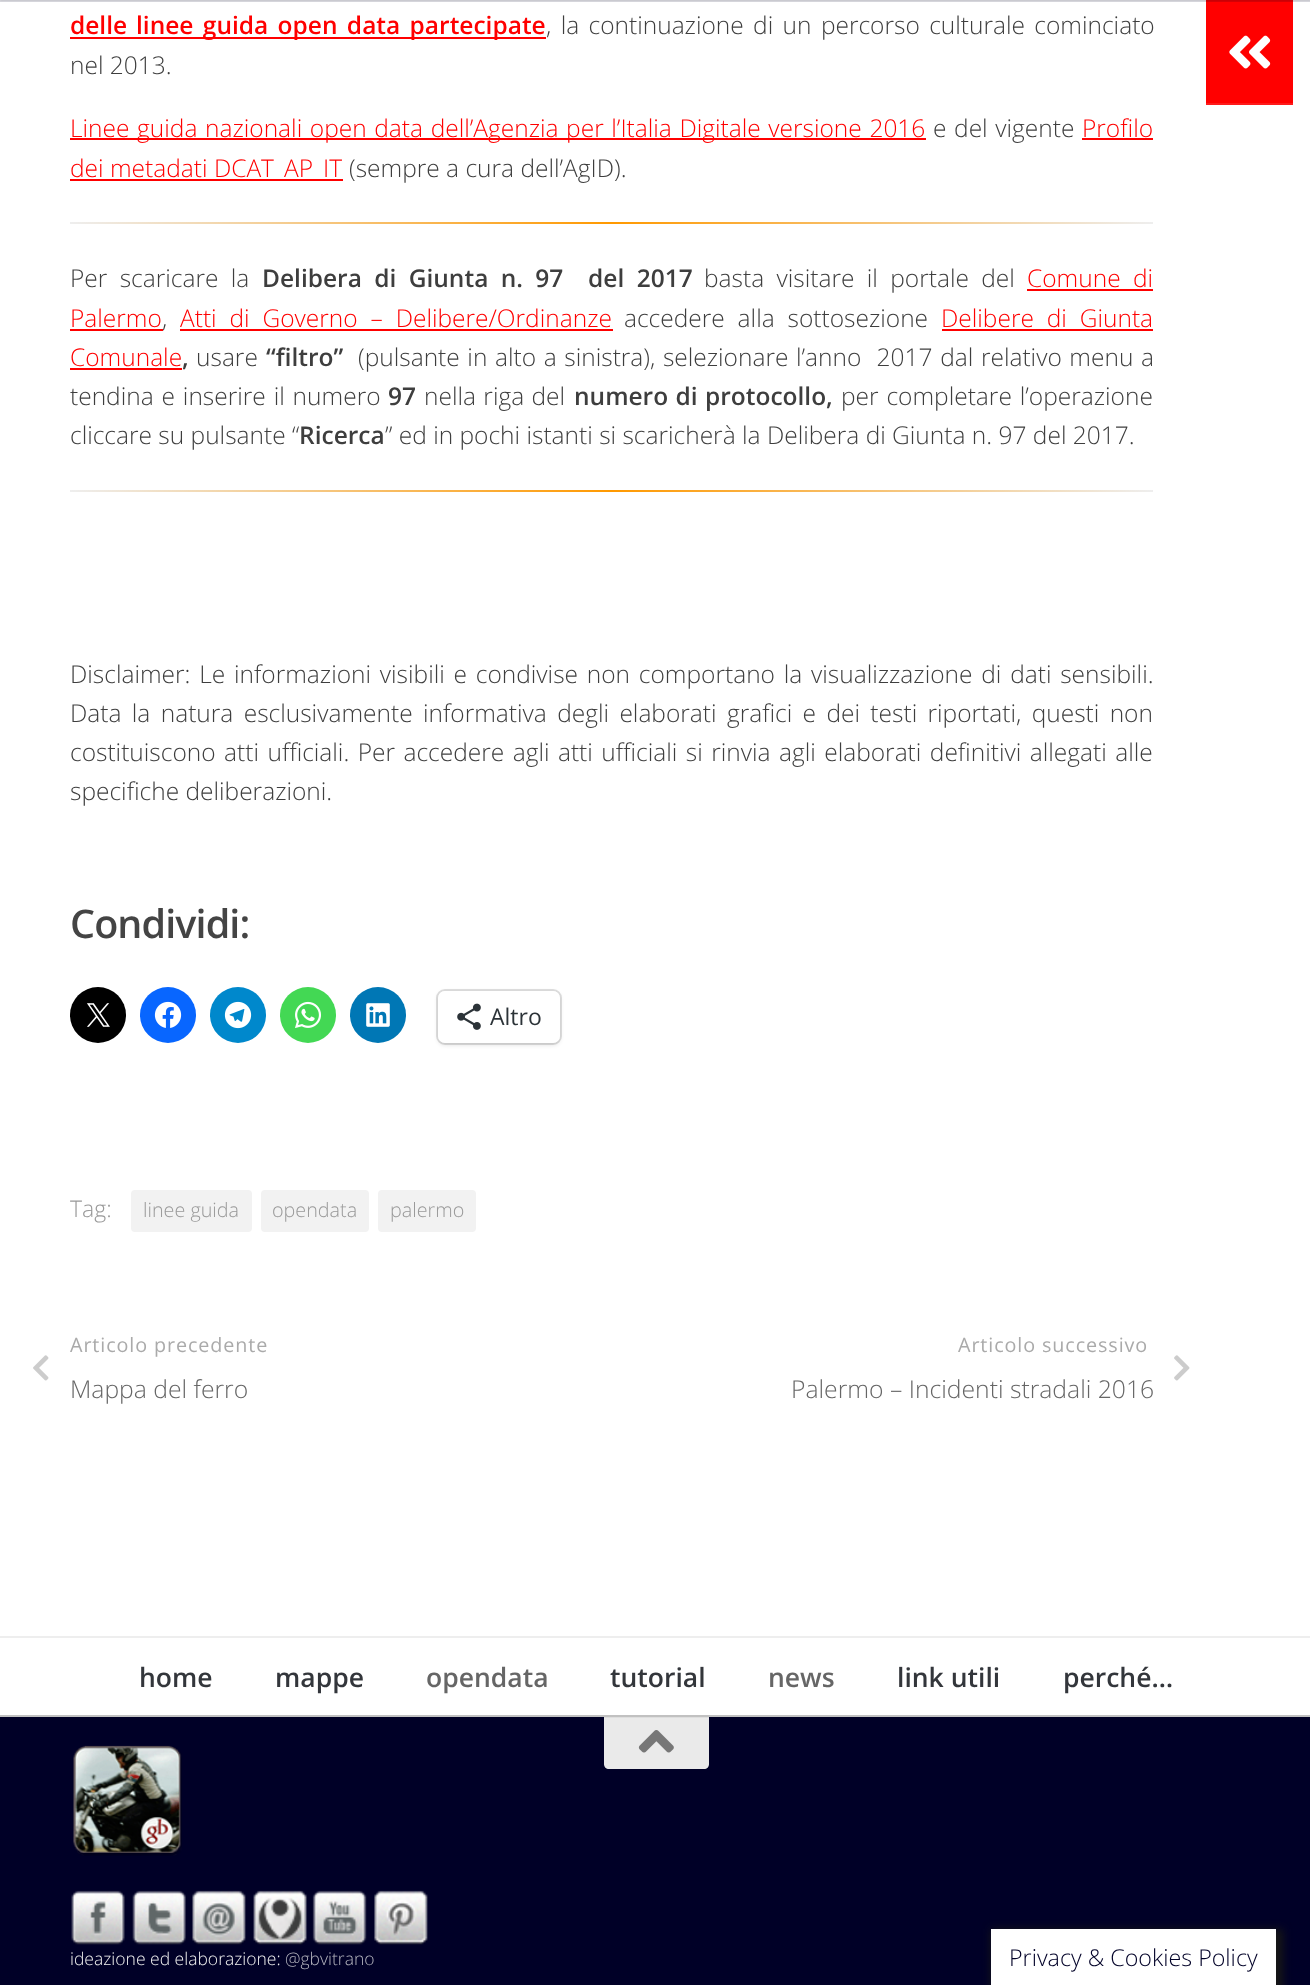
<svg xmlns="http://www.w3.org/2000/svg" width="1310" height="1985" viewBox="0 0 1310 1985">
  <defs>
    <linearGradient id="g1" gradientUnits="userSpaceOnUse" x1="70" y1="223" x2="1153" y2="223"><stop offset="0" stop-color="#eee"/><stop offset="0.5" stop-color="#f90"/><stop offset="1" stop-color="#eee"/></linearGradient>
    <linearGradient id="g2" gradientUnits="userSpaceOnUse" x1="70" y1="491" x2="1153" y2="491"><stop offset="0" stop-color="#eee"/><stop offset="0.5" stop-color="#f90"/><stop offset="1" stop-color="#eee"/></linearGradient>
  </defs>
  <rect width="100%" height="100%" fill="#fff"/>
  <path d="M1206 0h87v103H1206z" fill="#f00"/>
  <path d="M0 0V2H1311V-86V0Z" fill="#01012526"/>
  <path d="M0 -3h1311v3H0z" fill="#00000033" filter="blur(1px)"/>
  <path d="M70 37h476v2H70z" fill="#f00"/>
  <path d="M70 138h856v2H70z" fill="#f00"/>
  <path d="M1082 138h71v2H1082z" fill="#f00"/>
  <path d="M70 179h273v2H70z" fill="#f00"/>
  <path d="M70 222h1083v2H70z" fill="url(#g1)"/>
  <path d="M1027 289h126v2H1027z" fill="#f00"/>
  <path d="M70 329h93v2H70z" fill="#f00"/>
  <path d="M180 329h433v2H180z" fill="#f00"/>
  <path d="M942 329h211v2H942z" fill="#f00"/>
  <path d="M70 368h112v2H70z" fill="#f00"/>
  <path d="M70 490h1083v2H70z" fill="url(#g2)"/>
  <circle cx="98" cy="1015" r="28" fill="#000"/>
  <image x="87" y="1003" width="23" height="24" href="img/1.png"/>
  <circle cx="168" cy="1015" r="28" fill="#0866ff"/>
  <image x="154" y="1001" width="28" height="27" href="img/2.png"/>
  <circle cx="238" cy="1015" r="28" fill="#08c"/>
  <image x="224" y="1001" width="28" height="28" href="img/3.png"/>
  <circle cx="308" cy="1015" r="28" fill="#43d854"/>
  <image x="295" y="1001" width="26" height="27" href="img/4.png"/>
  <circle cx="378" cy="1015" r="28" fill="#0077b5"/>
  <image x="366" y="1003" width="24" height="24" href="img/5.png"/>
  <rect x="437" y="990" width="124" height="54" rx="8" fill="none" stroke="#e0e0e0" stroke-width="2"/>
  <rect x="438" y="992" width="122" height="53" rx="7" fill="#0000001f" filter="blur(2px)"/>
  <rect x="438" y="991" width="122" height="52" rx="7" fill="#fff"/>
  <image x="457" y="1003" width="24" height="27" href="img/6.png"/>
  <rect x="131" y="1190" width="121" height="42" rx="4" fill="#f2f2f2"/>
  <rect x="261" y="1190" width="108" height="42" rx="4" fill="#f2f2f2"/>
  <rect x="378" y="1190" width="98" height="42" rx="4" fill="#f2f2f2"/>
  <image x="33" y="1355" width="16" height="26" href="img/7.png"/>
  <image x="1174" y="1355" width="16" height="26" href="img/8.png"/>
  <path d="M1206 103h87v2H1206z" fill="#ff1a1a"/>
  <image x="1229" y="35" width="42" height="34" href="img/9.png"/>
  <path d="M0 1636h1310v2H0z" fill="#eee"/>
  <path d="M0 1717h1310v268H0z" fill="#000027"/>
  <path d="M0 1715h1310v2H0z" fill="#c1c1c1"/>
  <path d="M604 1717H709V1764C709 1767 707 1769 704 1769H609C606 1769 604 1767 604 1764Z" fill="#eaeaea"/>
  <path d="M604 1717h105v1H604z" fill="#dedede"/>
  <image x="638" y="1730" width="36" height="23" href="img/10.png"/>
  <image x="73" y="1745" width="109" height="111" href="img/11.png"/>
  <image x="71" y="1890" width="54" height="55" href="img/12.png"/>
  <image x="132" y="1890" width="54" height="55" href="img/13.png"/>
  <image x="192" y="1890" width="54" height="55" href="img/14.png"/>
  <image x="253" y="1890" width="54" height="55" href="img/15.png"/>
  <image x="312" y="1890" width="55" height="55" href="img/16.png"/>
  <image x="374" y="1890" width="54" height="55" href="img/17.png"/>
  <path d="M991 1929h292v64H991z" fill="#161616" filter="blur(4.5px)"/>
  <path d="M991 1929h285v56H991z" fill="#fff"/>
  <g font-family="Open Sans" font-size="24.5" font-weight="600" fill="#f00">
    <text x="70" y="34">delle</text>
    <text x="136" y="34" word-spacing="3">linee guida open data partecipate</text>
  </g>
  <g font-family="Open Sans" font-size="24.5" font-weight="300" fill="#3e3e3e">
    <text x="546" y="34" word-spacing="3">, la continuazione di un percorso culturale cominciato</text>
    <text x="70" y="74">nel 2013.</text>
  </g>
  <text x="70" y="137" word-spacing="1.25" font-family="Open Sans" font-size="24.5" font-weight="300" fill="#f00">Linee guida nazionali open data dell’Agenzia per l’Italia Digitale versione 2016</text>
  <text x="933" y="137" word-spacing="1.25" font-family="Open Sans" font-size="24.5" font-weight="300" fill="#3e3e3e">e del vigente</text>
  <g font-family="Open Sans" font-size="24.5" font-weight="300" fill="#f00">
    <text x="1082" y="137">Profilo</text>
    <text x="70" y="177">dei metadati DCAT_AP_IT</text>
  </g>
  <g font-family="Open Sans" font-size="24.5" font-weight="300" fill="#3e3e3e">
    <text x="349" y="177">(sempre a cura dell’AgID).</text>
    <text x="70" y="287" word-spacing="6">Per scaricare la</text>
  </g>
  <text x="262" y="287" word-spacing="6" font-family="Open Sans" font-size="24.5" font-weight="600" fill="#3e3e3e" xml:space="preserve">Delibera di Giunta n. 97  del 2017</text>
  <text x="704" y="287" word-spacing="6" font-family="Open Sans" font-size="24.5" font-weight="300" fill="#3e3e3e">basta visitare il portale del</text>
  <g font-family="Open Sans" font-size="24.5" font-weight="300" fill="#f00">
    <text x="1027" y="287" word-spacing="6">Comune di</text>
    <text x="70" y="327">Palermo</text>
  </g>
  <text x="162" y="327" font-family="Open Sans" font-size="24.5" font-weight="300" fill="#3e3e3e">,</text>
  <text x="180" y="327" word-spacing="6.5" font-family="Open Sans" font-size="24.5" font-weight="300" fill="#f00">Atti di Governo – Delibere/Ordinanze</text>
  <text x="624" y="327" word-spacing="6.5" font-family="Open Sans" font-size="24.5" font-weight="300" fill="#3e3e3e">accedere alla sottosezione</text>
  <g font-family="Open Sans" font-size="24.5" font-weight="300" fill="#f00">
    <text x="941" y="327" word-spacing="6.5">Delibere di Giunta</text>
    <text x="70" y="366">Comunale</text>
  </g>
  <text x="182" y="366" font-family="Open Sans" font-size="24.5" font-weight="600" fill="#3e3e3e">,</text>
  <text x="196" y="366" font-family="Open Sans" font-size="24.5" font-weight="300" fill="#3e3e3e">usare</text>
  <text x="266" y="366" font-family="Open Sans" font-size="24.5" font-weight="600" fill="#3e3e3e">“filtro”</text>
  <g font-family="Open Sans" font-size="24.5" font-weight="300" fill="#3e3e3e">
    <text x="358" y="366" word-spacing="1.25" xml:space="preserve">(pulsante in alto a sinistra), selezionare l’anno  2017 dal relativo menu a</text>
    <text x="70" y="405" word-spacing="1.5">tendina e inserire il numero</text>
  </g>
  <text x="388" y="405" font-family="Open Sans" font-size="24.5" font-weight="600" fill="#3e3e3e">97</text>
  <text x="424" y="405" word-spacing="1" font-family="Open Sans" font-size="24.5" font-weight="300" fill="#3e3e3e">nella riga del</text>
  <text x="574" y="405" word-spacing="1" font-family="Open Sans" font-size="24.5" font-weight="600" fill="#3e3e3e">numero di protocollo,</text>
  <g font-family="Open Sans" font-size="24.5" font-weight="300" fill="#3e3e3e">
    <text x="841" y="405" word-spacing="1.5">per completare l’operazione</text>
    <text x="70" y="444">cliccare su pulsante “</text>
  </g>
  <text x="299" y="444" font-family="Open Sans" font-size="24.5" font-weight="600" fill="#3e3e3e">Ricerca</text>
  <g font-family="Open Sans" font-size="24.5" font-weight="300" fill="#3e3e3e">
    <text x="385" y="444">” ed in pochi istanti si scaricherà la Delibera di Giunta n. 97 del 2017.</text>
    <text x="70" y="683" word-spacing="2.4">Disclaimer: Le informazioni visibili e condivise non comportano la visualizzazione di dati sensibili.</text>
    <text x="70" y="722" word-spacing="4">Data la natura esclusivamente informativa degli elaborati grafici e dei testi riportati, questi non</text>
    <text x="70" y="761" word-spacing="2.1">costituiscono atti ufficiali. Per accedere agli atti ufficiali si rinvia agli elaborati definitivi allegati alle</text>
    <text x="70" y="800">specifiche deliberazioni.</text>
  </g>
  <text x="70" y="938" font-family="Open Sans" font-size="39.5" font-weight="600" letter-spacing="-0.9" fill="#444">Condividi:</text>
  <text x="490" y="1025" font-family="Open Sans" font-size="23" fill="#2c3338">Altro</text>
  <text x="70" y="1217" font-family="Open Sans" font-size="23" font-weight="300" fill="#999">Tag:</text>
  <g font-family="Open Sans" font-size="19.75" font-weight="300" fill="#999">
    <text x="143" y="1217">linee guida</text>
    <text x="272" y="1217">opendata</text>
    <text x="390" y="1217">palermo</text>
  </g>
  <text x="70" y="1352" font-family="Open Sans" font-size="19.75" letter-spacing="0.9" fill="#aaa">Articolo precedente</text>
  <text x="70" y="1398" font-family="Open Sans" font-size="24.7" font-weight="300" fill="#666">Mappa del ferro</text>
  <text x="958" y="1352" font-family="Open Sans" font-size="19.75" letter-spacing="0.9" fill="#aaa">Articolo successivo</text>
  <text x="791" y="1398" font-family="Open Sans" font-size="24.7" font-weight="300" fill="#666">Palermo – Incidenti stradali 2016</text>
  <g font-family="Open Sans" font-size="26.5" font-weight="600" fill="#33363b">
    <text x="139" y="1687">home</text>
    <text x="275" y="1687">mappe</text>
  </g>
  <text x="426" y="1687" font-family="Open Sans" font-size="26.5" font-weight="600" fill="#666">opendata</text>
  <text x="610" y="1687" font-family="Open Sans" font-size="26.5" font-weight="600" fill="#33363b">tutorial</text>
  <text x="768" y="1687" font-family="Open Sans" font-size="26.5" font-weight="600" fill="#666">news</text>
  <g font-family="Open Sans" font-size="26.5" font-weight="600" fill="#33363b">
    <text x="897" y="1687">link utili</text>
    <text x="1063" y="1687">perché…</text>
  </g>
  <text x="70" y="1965" font-family="Open Sans" font-size="17.5" font-weight="300" fill="#f0f0f0">ideazione ed elaborazione:</text>
  <text x="285" y="1965" font-family="Open Sans" font-size="17.5" font-weight="300" fill="#b3b3be">@gbvitrano</text>
  <text x="1009" y="1966" font-family="Open Sans" font-size="23.25" font-weight="300" fill="#000027">Privacy &amp; Cookies Policy</text>
</svg>
